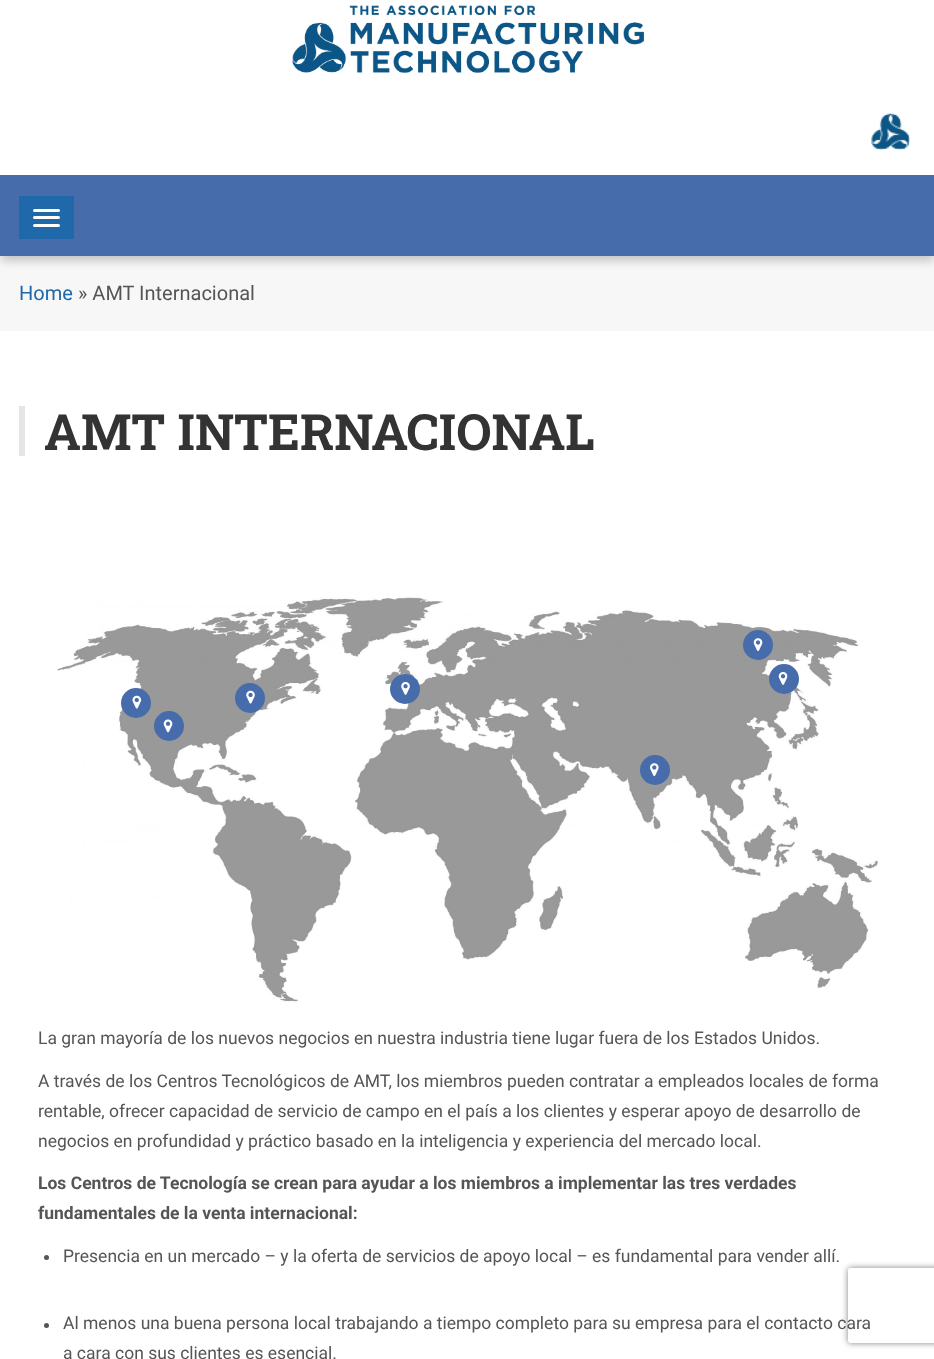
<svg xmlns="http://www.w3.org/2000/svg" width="934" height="1359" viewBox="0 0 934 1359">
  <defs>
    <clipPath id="clip1"><path d="M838 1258H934V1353H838ZM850.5 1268H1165.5C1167 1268 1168 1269 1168 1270.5V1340.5C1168 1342 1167 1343 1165.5 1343H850.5C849 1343 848 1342 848 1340.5V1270.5C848 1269 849 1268 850.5 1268Z" clip-rule="evenodd"/></clipPath>
  </defs>
  <rect width="100%" height="100%" fill="#fff"/>
  <image x="292" y="5" width="353" height="68" href="img/1.png"/>
  <image x="871" y="113" width="39" height="37" href="img/2.png"/>
  <path d="M0 256h934v75H0z" fill="#f7f7f7"/>
  <path d="M1 183h933v78H1z" fill="#00000033" filter="blur(5px)"/>
  <path d="M0 175h934v81H0z" fill="#476cab"/>
  <path d="M19 196h55v43H19z" fill="#1f68aa"/>
  <rect x="33" y="209" width="27" height="3" rx="1.5" fill="#fff"/>
  <rect x="33" y="216" width="27" height="3" rx="1.5" fill="#fff"/>
  <rect x="33" y="224" width="27" height="3" rx="1.5" fill="#fff"/>
  <path d="M19 406h6v50H19z" fill="#e5e5e5"/>
  <image x="57" y="597" width="821" height="405" href="img/3.png"/>
  <circle cx="758" cy="645" r="15" fill="#476cab"/>
  <image x="753" y="638" width="10" height="13" href="img/4.png"/>
  <circle cx="136" cy="703" r="15" fill="#476cab"/>
  <image x="132" y="695" width="10" height="14" href="img/5.png"/>
  <circle cx="250" cy="698" r="15" fill="#476cab"/>
  <image x="246" y="690" width="9" height="14" href="img/6.png"/>
  <circle cx="405" cy="689" r="15" fill="#476cab"/>
  <image x="401" y="682" width="9" height="13" href="img/7.png"/>
  <circle cx="784" cy="679" r="15" fill="#476cab"/>
  <image x="778" y="672" width="10" height="13" href="img/8.png"/>
  <circle cx="169" cy="726" r="15" fill="#476cab"/>
  <image x="163" y="719" width="10" height="14" href="img/9.png"/>
  <circle cx="655" cy="770" r="15" fill="#476cab"/>
  <image x="650" y="763" width="9" height="13" href="img/10.png"/>
  <circle cx="46.5" cy="1257.5" r="2.5" fill="#555"/>
  <circle cx="46.5" cy="1325.5" r="2.5" fill="#555"/>
  <g clip-path="url(#clip1)">
    <rect x="848" y="1268" width="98" height="75" rx="2.5" fill="#808080" filter="blur(3px)"/>
  </g>
  <text x="19" y="300" font-family="Roboto" font-size="20" fill="#1f68aa">Home</text>
  <text x="78" y="300" font-family="Roboto" font-size="20" fill="#555">» AMT Internacional</text>
  <text x="44" y="450" font-family="Roboto Slab" font-size="50" font-weight="bold" fill="#333">AMT INTERNACIONAL</text>
  <g font-family="Roboto" font-size="17.5" fill="#555">
    <text x="38" y="1044">La gran mayoría de los nuevos negocios en nuestra industria tiene lugar fuera de los Estados Unidos.</text>
    <text x="38" y="1087">A través de los Centros Tecnológicos de AMT, los miembros pueden contratar a empleados locales de forma</text>
    <text x="38" y="1117">rentable, ofrecer capacidad de servicio de campo en el país a los clientes y esperar apoyo de desarrollo de</text>
    <text x="38" y="1147">negocios en profundidad y práctico basado en la inteligencia y experiencia del mercado local.</text>
  </g>
  <g font-family="Roboto" font-size="17.5" font-weight="bold" fill="#555">
    <text x="38" y="1189">Los Centros de Tecnología se crean para ayudar a los miembros a implementar las tres verdades</text>
    <text x="38" y="1219">fundamentales de la venta internacional:</text>
  </g>
  <g font-family="Roboto" font-size="17.5" fill="#555">
    <text x="63" y="1262">Presencia en un mercado – y la oferta de servicios de apoyo local – es fundamental para vender allí.</text>
    <text x="63" y="1329">Al menos una buena persona local trabajando a tiempo completo para su empresa para el contacto cara</text>
    <text x="63" y="1359">a cara con sus clientes es esencial.</text>
  </g>
</svg>
